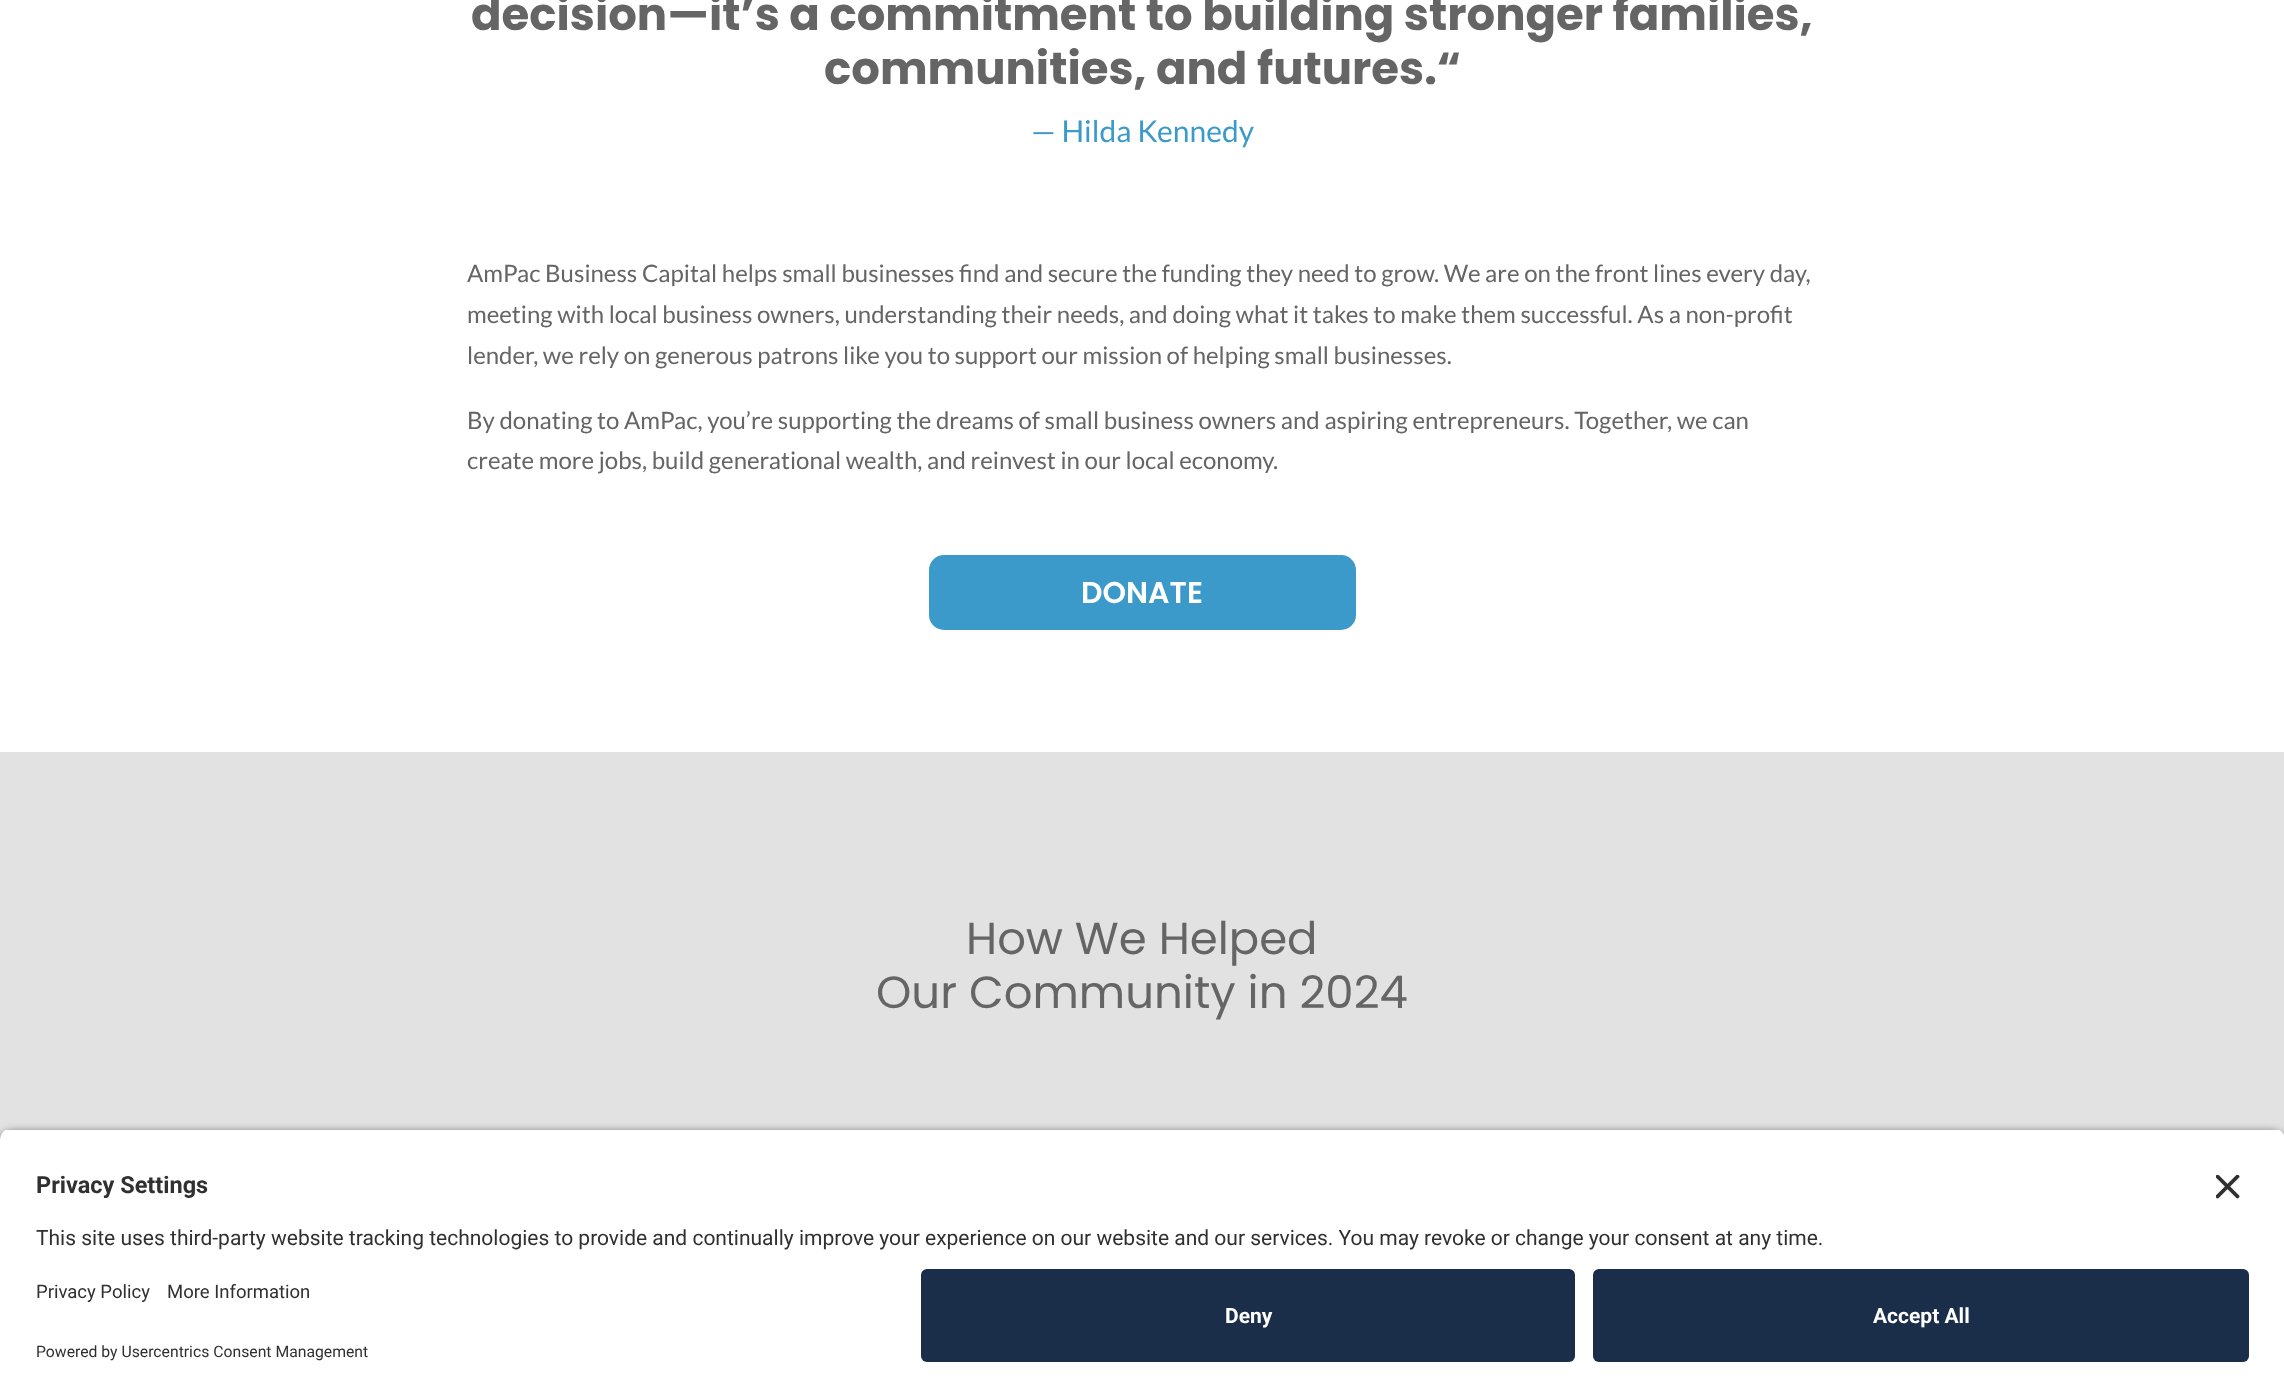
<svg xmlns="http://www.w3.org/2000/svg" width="2284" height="1397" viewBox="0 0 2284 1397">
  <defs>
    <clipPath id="clip1"><path d="M12 1128H2273C2279.5 1128 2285 1133.5 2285 1140V1257H0V1140C0 1133.5 5.5 1128 12 1128Z"/></clipPath>
  </defs>
  <rect width="100%" height="100%" fill="#fff"/>
  <rect x="929" y="555" width="427" height="75" rx="15" fill="#3c9aca"/>
  <path d="M0 752h2284v388H0z" fill="#e2e2e2"/>
  <rect y="1133" width="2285" height="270" rx="12" fill="#000000cc" filter="blur(5px)"/>
  <g clip-path="url(#clip1)">
    <path d="M0 1130h2284v127H0z" fill="#fff"/>
  </g>
  <image x="2216" y="1175" width="24" height="24" href="img/1.png"/>
  <path d="M0 1257h2284v140H0z" fill="#fff"/>
  <rect x="921" y="1269" width="654" height="93" rx="6" fill="#1a2e4a"/>
  <rect x="1593" y="1269" width="656" height="93" rx="6" fill="#1a2e4a"/>
  <g font-family="Poppins" font-size="45" font-weight="bold" fill="#656565">
    <text x="471" y="30">decision—it’s a commitment to building stronger families,</text>
    <text x="824" y="84">communities, and futures.“</text>
  </g>
  <text x="1031" y="142" font-family="Lato" font-size="30" fill="#3c9aca">— Hilda Kennedy</text>
  <g font-family="Lato" font-size="24" fill="#656565">
    <text x="467" y="282">AmPac Business Capital helps small businesses find and secure the funding they need to grow. We are on the front lines every day,</text>
    <text x="467" y="323">meeting with local business owners, understanding their needs, and doing what it takes to make them successful. As a non-profit</text>
    <text x="467" y="364">lender, we rely on generous patrons like you to support our mission of helping small businesses.</text>
    <text x="467" y="429">By donating to AmPac, you’re supporting the dreams of small business owners and aspiring entrepreneurs. Together, we can</text>
    <text x="467" y="469">create more jobs, build generational wealth, and reinvest in our local economy.</text>
  </g>
  <text x="1081" y="603" font-family="Poppins" font-size="30" font-weight="600" fill="#fff">DONATE</text>
  <g font-family="Poppins" font-size="45" fill="#656565">
    <text x="966" y="954">How We Helped</text>
    <text x="876" y="1008">Our Community in 2024</text>
  </g>
  <text x="36" y="1193" font-family="Roboto" font-size="23.5" font-weight="bold" fill="#303030">Privacy Settings</text>
  <text x="36" y="1245" font-family="Roboto" font-size="21" fill="#303030">This site uses third-party website tracking technologies to provide and continually improve your experience on our website and our services. You may revoke or change your consent at any time.</text>
  <g font-family="Roboto" font-size="18.5" fill="#303030">
    <text x="36" y="1298">Privacy Policy</text>
    <text x="167" y="1298">More Information</text>
  </g>
  <text x="36" y="1357" font-family="Roboto" font-size="15.75" fill="#303030">Powered by Usercentrics Consent Management</text>
  <g font-family="Roboto" font-size="21" font-weight="bold" fill="#fff">
    <text x="1225" y="1323">Deny</text>
    <text x="1873" y="1323">Accept All</text>
  </g>
</svg>
